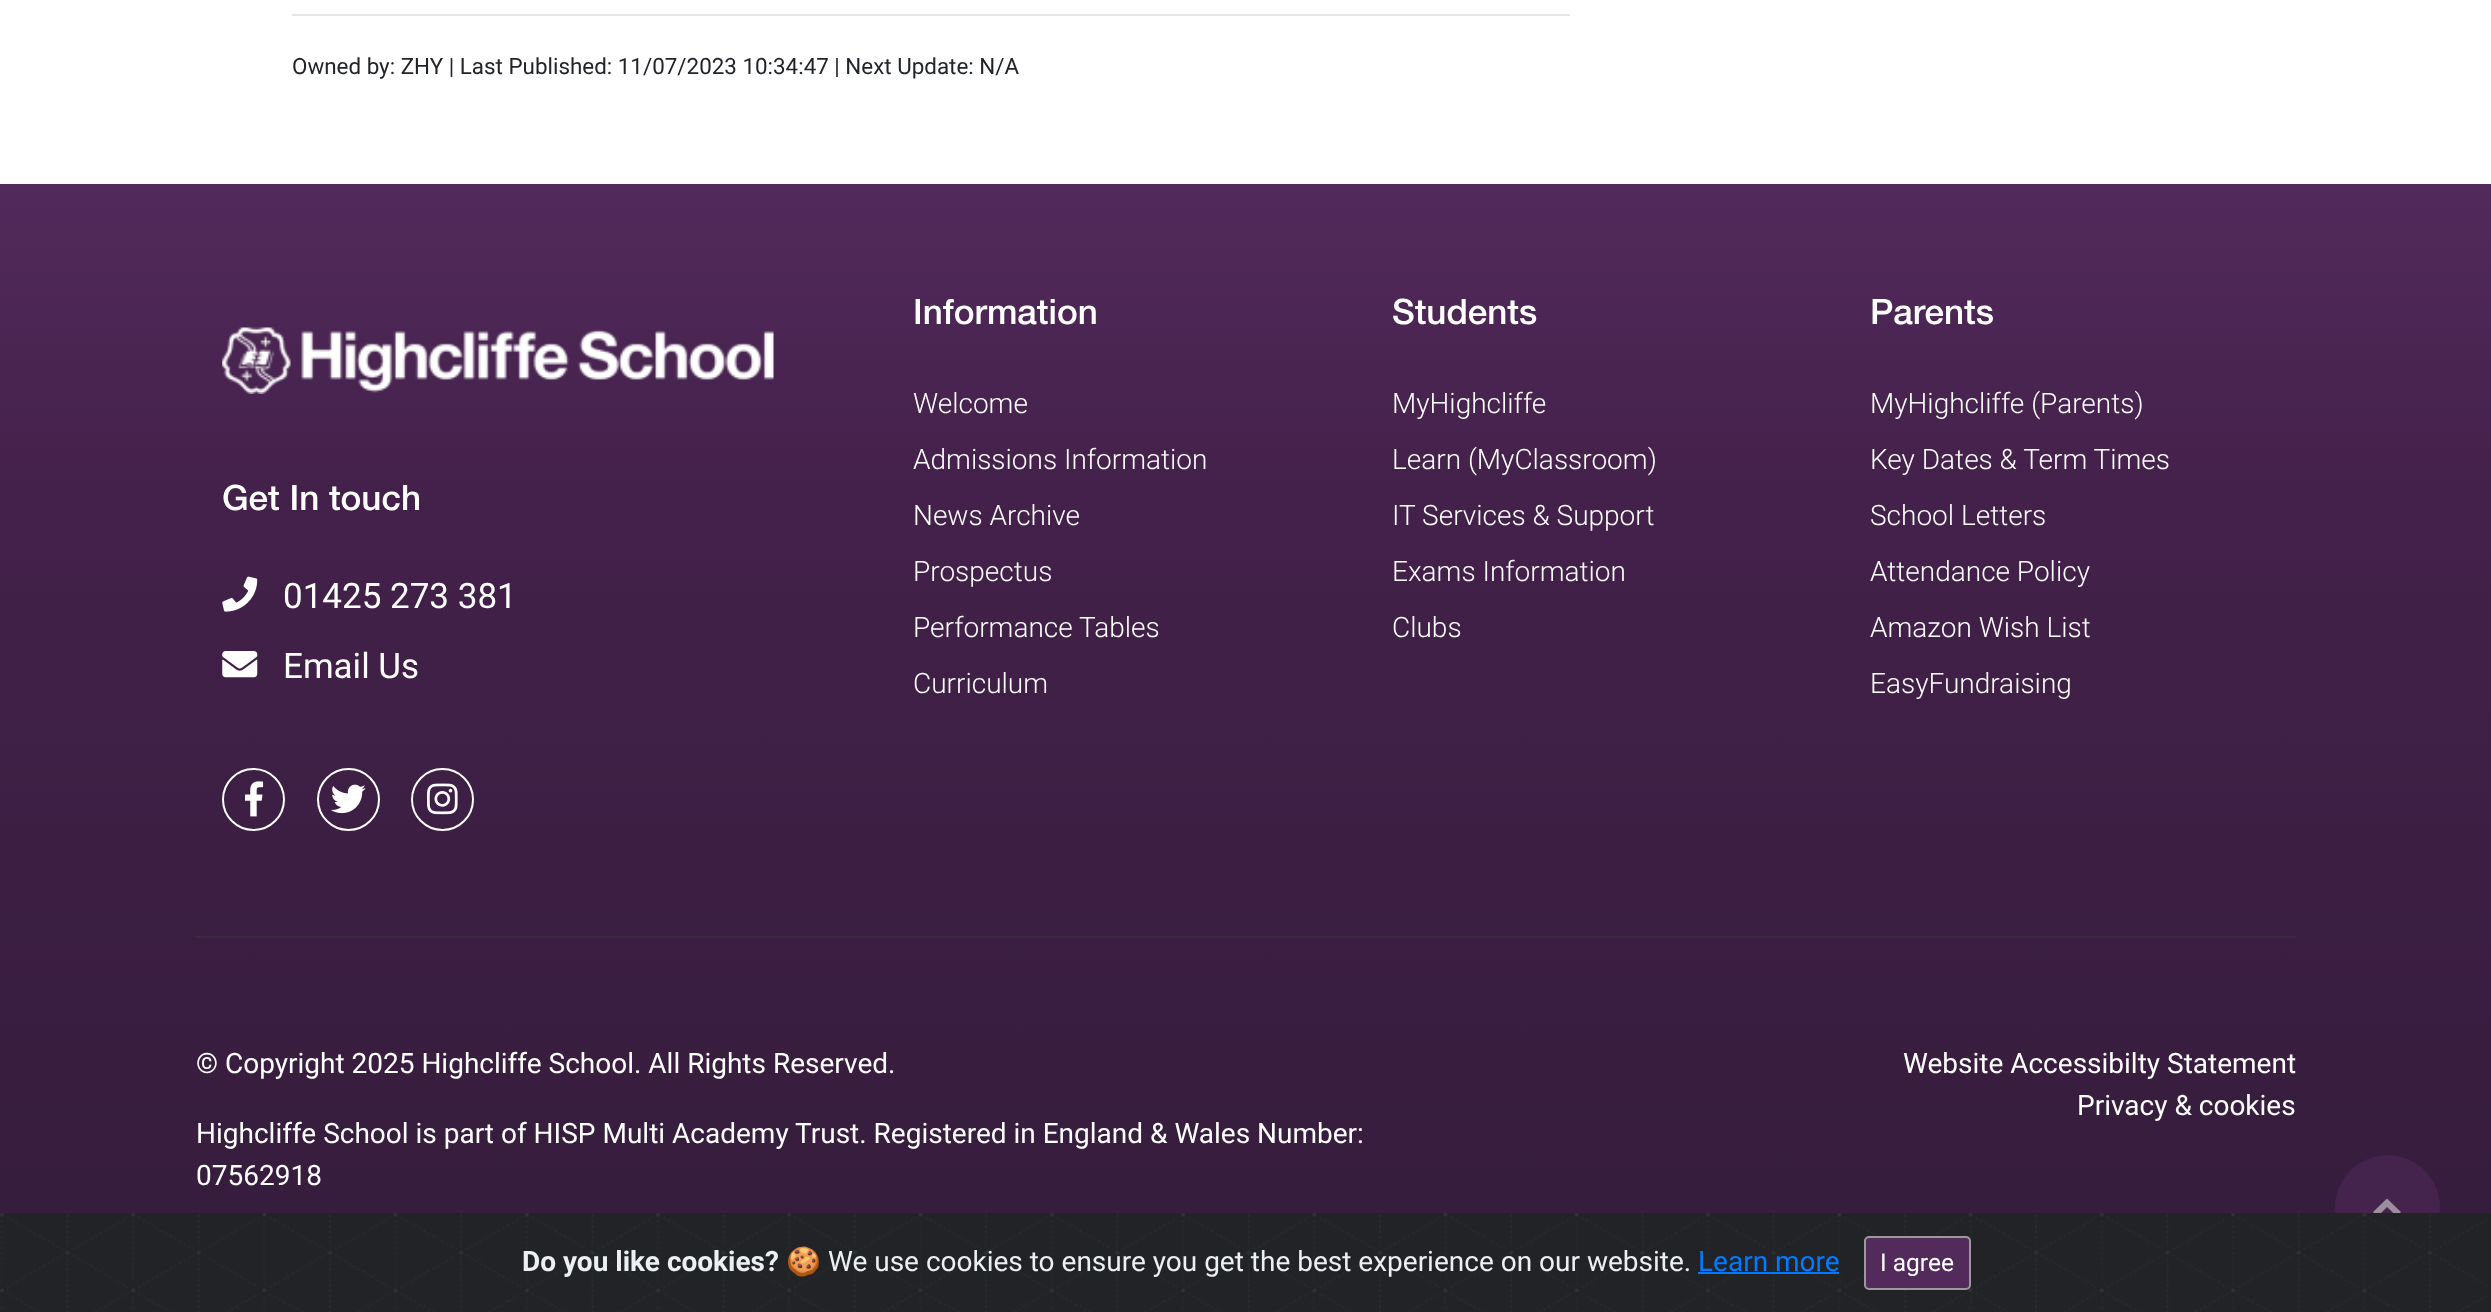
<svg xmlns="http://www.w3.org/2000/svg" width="2491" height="1312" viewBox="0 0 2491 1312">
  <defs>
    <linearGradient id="g1" gradientUnits="userSpaceOnUse" x1="1246" y1="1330" x2="1246" y2="184"><stop offset="0" stop-color="#341c3b"/><stop offset="0.37" stop-color="#3b1e42"/><stop offset="0.74" stop-color="#44214b"/><stop offset="1" stop-color="#522a5b"/></linearGradient>
  </defs>
  <rect width="100%" height="100%" fill="#fff"/>
  <path d="M292 14h1278v2H292z" fill="#e6e6e6"/>
  <path d="M0 184h2491v1029H0z" fill="url(#g1)"/>
  <path d="M196 936h2100v2H196z" fill="#3c2a40"/>
  <image x="222" y="327" width="552" height="67" href="img/1.png"/>
  <image x="222" y="576" width="36" height="36" href="img/2.png"/>
  <image x="222" y="651" width="36" height="27" href="img/3.png"/>
  <circle cx="253.5" cy="799.5" r="30.5" fill="none" stroke="#fff" stroke-width="2"/>
  <image x="245" y="781" width="19" height="36" href="img/4.png"/>
  <circle cx="348.5" cy="799.5" r="30.5" fill="none" stroke="#fff" stroke-width="2"/>
  <image x="331" y="784" width="35" height="30" href="img/5.png"/>
  <circle cx="442.5" cy="799.5" r="30.5" fill="none" stroke="#fff" stroke-width="2"/>
  <image x="427" y="783" width="31" height="32" href="img/6.png"/>
  <path d="M2487 1213h4v99H2487z" fill="#212327"/>
  <circle cx="2387.5" cy="1207.5" r="52.5" fill="#44234c"/>
  <path d="M2387 1198.5L2401 1212L2397 1216.5L2387 1207L2377.5 1216.5L2373 1212Z" fill="#9b8e9e"/>
  <image x="0" y="1213" width="2487" height="99" href="img/7.png"/>
  <path d="M1698 1272h141v2H1698z" fill="#007bff"/>
  <rect x="1865" y="1237" width="105" height="52" rx="4" fill="#522a5b" stroke="#9b9a99" stroke-width="2"/>
  <text x="292" y="74" font-family="Roboto" font-size="22.4" fill="#212529">Owned by: ZHY | Last Published: 11/07/2023 10:34:47 | Next Update: N/A</text>
  <text x="222" y="510" font-family="Helvetica Neue" font-size="35" font-weight="500" fill="#fff">Get In touch</text>
  <g font-family="Roboto" font-size="35" fill="#fff">
    <text x="283" y="608">01425 273 381</text>
    <text x="283" y="678">Email Us</text>
  </g>
  <text x="913" y="324" font-family="Helvetica Neue" font-size="35" font-weight="500" fill="#fff">Information</text>
  <g font-family="Roboto" font-size="28" font-weight="300" fill="#fff">
    <text x="913" y="413">Welcome</text>
    <text x="913" y="469">Admissions Information</text>
    <text x="913" y="525">News Archive</text>
    <text x="913" y="581">Prospectus</text>
    <text x="913" y="637">Performance Tables</text>
    <text x="913" y="693">Curriculum</text>
  </g>
  <text x="1392" y="324" font-family="Helvetica Neue" font-size="35" font-weight="500" fill="#fff">Students</text>
  <g font-family="Roboto" font-size="28" font-weight="300" fill="#fff">
    <text x="1392" y="413">MyHighcliffe</text>
    <text x="1392" y="469">Learn (MyClassroom)</text>
    <text x="1392" y="525">IT Services &amp; Support</text>
    <text x="1392" y="581">Exams Information</text>
    <text x="1392" y="637">Clubs</text>
  </g>
  <text x="1870" y="324" font-family="Helvetica Neue" font-size="35" font-weight="500" fill="#fff">Parents</text>
  <g font-family="Roboto" font-size="28" font-weight="300" fill="#fff">
    <text x="1870" y="413">MyHighcliffe (Parents)</text>
    <text x="1870" y="469">Key Dates &amp; Term Times</text>
    <text x="1870" y="525">School Letters</text>
    <text x="1870" y="581">Attendance Policy</text>
    <text x="1870" y="637">Amazon Wish List</text>
    <text x="1870" y="693">EasyFundraising</text>
  </g>
  <g font-family="Roboto" font-size="28" fill="#fff">
    <text x="196" y="1073">© Copyright 2025 Highcliffe School. All Rights Reserved.</text>
    <text x="196" y="1143">Highcliffe School is part of HISP Multi Academy Trust. Registered in England &amp; Wales Number:</text>
    <text x="196" y="1185">07562918</text>
    <text x="1903" y="1073">Website Accessibilty Statement</text>
    <text x="2077" y="1115">Privacy &amp; cookies</text>
  </g>
  <text x="522" y="1271" font-family="Roboto" font-size="28" font-weight="bold" fill="#ecf0f1">Do you like cookies?</text>
  <text x="786" y="1271" font-family="Noto Color Emoji" font-size="28" fill="#ecf0f1">🍪</text>
  <text x="828" y="1271" font-family="Roboto" font-size="28" fill="#ecf0f1">We use cookies to ensure you get the best experience on our website.</text>
  <text x="1698" y="1271" font-family="Roboto" font-size="28" fill="#007bff">Learn more</text>
  <text x="1880" y="1271" font-family="Roboto" font-size="24.5" fill="#fff">I agree</text>
</svg>
